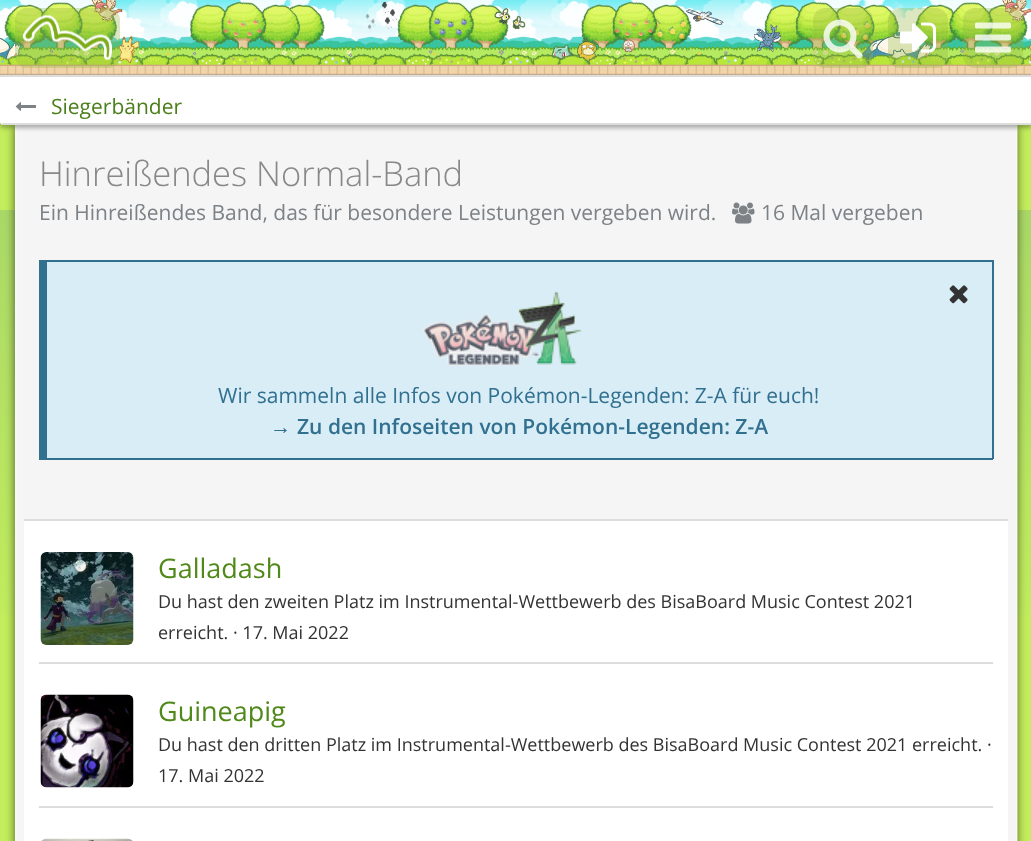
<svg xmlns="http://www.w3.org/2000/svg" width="1031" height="841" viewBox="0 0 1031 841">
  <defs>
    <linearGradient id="g1" gradientUnits="userSpaceOnUse" x1="516" y1="210" x2="516" y2="660"><stop offset="0" stop-color="#aad867"/><stop offset="1" stop-color="#c3ee5c"/></linearGradient>
  </defs>
  <rect width="100%" height="100%" fill="#c3ed5c"/>
  <path d="M0 210h1031v405H0z" fill="url(#g1)"/>
  <path d="M15 125h1002v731H15z" fill="#00000099" filter="blur(5px)"/>
  <path d="M17 125h1000v716H17z" fill="#f5f5f5"/>
  <path d="M1016 125h2v716H1016z" fill="#ffffff66"/>
  <path d="M15 125h2v716H15z" fill="#f9f9f9"/>
  <rect y="78" width="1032" height="50" rx="3" fill="#0000004d" filter="blur(2px)"/>
  <image x="0" y="0" width="1031" height="75" href="img/1.png"/>
  <rect x="15" y="8" width="105" height="60" rx="12" fill="#95b74054"/>
  <image x="22" y="14" width="91" height="47" href="img/2.png"/>
  <rect x="813" y="8" width="60" height="60" rx="12" fill="#95b74054"/>
  <image x="823" y="19" width="40" height="40" href="img/3.png"/>
  <rect x="888" y="8" width="60" height="60" rx="12" fill="#95b74054"/>
  <image x="900" y="22" width="36" height="31" href="img/4.png"/>
  <rect x="963" y="8" width="60" height="60" rx="12" fill="#95b74054"/>
  <image x="975" y="22" width="36" height="31" href="img/5.png"/>
  <path d="M0 75H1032V122C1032 123.5 1030.5 125 1029 125H3C1.5 125 0 123.5 0 122Z" fill="#fff"/>
  <path d="M0 75h1031v2H0z" fill="#ddd"/>
  <path d="M2 123h1029v2H2z" fill="#ddd"/>
  <image x="15" y="102" width="21" height="9" href="img/6.png"/>
  <image x="732" y="202" width="23" height="22" href="img/7.png"/>
  <path d="M47 262h945v196H47z" fill="#d9edf7"/>
  <path d="M39 260h954v2H39z" fill="#31708f"/>
  <path d="M992 260h2v199H992z" fill="#31708f"/>
  <path d="M39 458h954v2H39z" fill="#31708f"/>
  <path d="M39 260h8v199H39z" fill="#31708f"/>
  <image x="949" y="285" width="19" height="19" href="img/8.png"/>
  <image x="422" y="291" width="161" height="75" href="img/9.png"/>
  <path d="M24 521h984v320H24z" fill="#fff"/>
  <path d="M24 519h984v2H24z" fill="#ddd"/>
  <path d="M39 662h954v2H39z" fill="#ddd"/>
  <image x="40" y="552" width="94" height="93" href="img/10.png"/>
  <path d="M39 806h954v2H39z" fill="#ddd"/>
  <image x="40" y="694" width="94" height="94" href="img/11.png"/>
  <image x="41" y="838" width="92" height="3" href="img/12.png"/>
  <text x="51" y="114" font-family="Open Sans" font-size="21" fill="#4c7f1b">Siegerbänder</text>
  <text x="39" y="186" font-family="Open Sans" font-size="34.5" font-weight="300" fill="#888">Hinreißendes Normal-Band</text>
  <g font-family="Open Sans" font-size="21" fill="#7d8287">
    <text x="39" y="220">Ein Hinreißendes Band, das für besondere Leistungen vergeben wird.</text>
    <text x="761" y="220">16 Mal vergeben</text>
  </g>
  <text x="218" y="403" font-family="Open Sans" font-size="21" fill="#31708f">Wir sammeln alle Infos von Pokémon-Legenden: Z-A für euch!</text>
  <text x="270" y="434" font-family="Liberation Sans" font-size="21" font-weight="bold" fill="#31708f">→</text>
  <text x="297" y="434" font-family="Open Sans" font-size="21" font-weight="600" fill="#31708f">Zu den Infoseiten von Pokémon-Legenden: Z-A</text>
  <text x="158" y="578" font-family="Open Sans" font-size="27" fill="#50891a">Galladash</text>
  <g font-family="Open Sans" font-size="18" fill="#333">
    <text x="158" y="608">Du hast den zweiten Platz im Instrumental-Wettbewerb des BisaBoard Music Contest 2021</text>
    <text x="158" y="639">erreicht. · 17. Mai 2022</text>
  </g>
  <text x="158" y="721" font-family="Open Sans" font-size="27" fill="#50891a">Guineapig</text>
  <g font-family="Open Sans" font-size="18" fill="#333">
    <text x="158" y="751">Du hast den dritten Platz im Instrumental-Wettbewerb des BisaBoard Music Contest 2021 erreicht. ·</text>
    <text x="158" y="782">17. Mai 2022</text>
  </g>
</svg>
